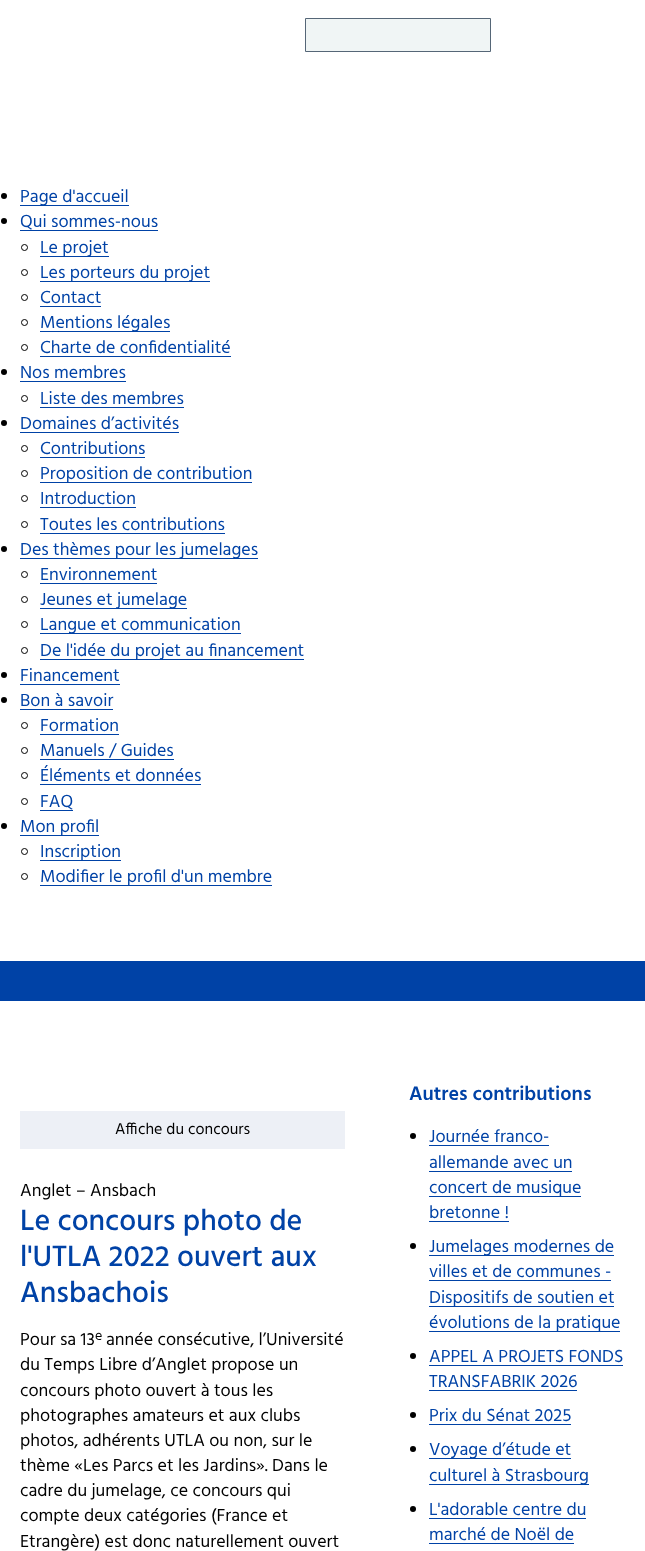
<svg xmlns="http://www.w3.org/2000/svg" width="645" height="1551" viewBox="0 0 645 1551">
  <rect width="100%" height="100%" fill="#fff"/>
  <path d="M305.5 18.5h185v33H305.5z" fill="#f0f5f5" stroke="#567"/>
  <circle cx="4" cy="196" r="3" fill="#000"/>
  <path d="M20 205h109v1H20z" fill="#0042a6"/>
  <circle cx="4" cy="221" r="3" fill="#000"/>
  <path d="M20 230h138v1H20z" fill="#0042a6"/>
  <circle cx="24.5" cy="247.5" r="3" fill="none" stroke="#000"/>
  <path d="M40 256h69v1H40z" fill="#0042a6"/>
  <circle cx="24.5" cy="272.5" r="3" fill="none" stroke="#000"/>
  <path d="M40 281h170v1H40z" fill="#0042a6"/>
  <circle cx="24.5" cy="297.5" r="3" fill="none" stroke="#000"/>
  <path d="M40 306h61v1H40z" fill="#0042a6"/>
  <circle cx="24.5" cy="322.5" r="3" fill="none" stroke="#000"/>
  <path d="M40 331h130v1H40z" fill="#0042a6"/>
  <circle cx="24.5" cy="347.5" r="3" fill="none" stroke="#000"/>
  <path d="M40 356h191v1H40z" fill="#0042a6"/>
  <circle cx="4" cy="372" r="3" fill="#000"/>
  <path d="M20 381h106v1H20z" fill="#0042a6"/>
  <circle cx="24.5" cy="398.5" r="3" fill="none" stroke="#000"/>
  <path d="M40 407h144v1H40z" fill="#0042a6"/>
  <circle cx="4" cy="423" r="3" fill="#000"/>
  <path d="M20 432h159v1H20z" fill="#0042a6"/>
  <circle cx="24.5" cy="448.5" r="3" fill="none" stroke="#000"/>
  <path d="M40 457h105v1H40z" fill="#0042a6"/>
  <circle cx="24.5" cy="473.5" r="3" fill="none" stroke="#000"/>
  <path d="M40 482h212v1H40z" fill="#0042a6"/>
  <circle cx="24.5" cy="498.5" r="3" fill="none" stroke="#000"/>
  <path d="M40 507h96v1H40z" fill="#0042a6"/>
  <circle cx="24.5" cy="524.5" r="3" fill="none" stroke="#000"/>
  <path d="M40 533h185v1H40z" fill="#0042a6"/>
  <circle cx="4" cy="549" r="3" fill="#000"/>
  <path d="M20 558h238v1H20z" fill="#0042a6"/>
  <circle cx="24.5" cy="574.5" r="3" fill="none" stroke="#000"/>
  <path d="M40 583h117v1H40z" fill="#0042a6"/>
  <circle cx="24.5" cy="599.5" r="3" fill="none" stroke="#000"/>
  <path d="M40 608h147v1H40z" fill="#0042a6"/>
  <circle cx="24.5" cy="624.5" r="3" fill="none" stroke="#000"/>
  <path d="M40 633h201v1H40z" fill="#0042a6"/>
  <circle cx="24.5" cy="650.5" r="3" fill="none" stroke="#000"/>
  <path d="M40 659h264v1H40z" fill="#0042a6"/>
  <circle cx="4" cy="675" r="3" fill="#000"/>
  <path d="M20 684h100v1H20z" fill="#0042a6"/>
  <circle cx="4" cy="700" r="3" fill="#000"/>
  <path d="M20 709h93v1H20z" fill="#0042a6"/>
  <circle cx="24.5" cy="725.5" r="3" fill="none" stroke="#000"/>
  <path d="M40 734h79v1H40z" fill="#0042a6"/>
  <circle cx="24.5" cy="750.5" r="3" fill="none" stroke="#000"/>
  <path d="M40 759h134v1H40z" fill="#0042a6"/>
  <circle cx="24.5" cy="775.5" r="3" fill="none" stroke="#000"/>
  <path d="M40 784h161v1H40z" fill="#0042a6"/>
  <circle cx="24.5" cy="801.5" r="3" fill="none" stroke="#000"/>
  <path d="M40 810h33v1H40z" fill="#0042a6"/>
  <circle cx="4" cy="826" r="3" fill="#000"/>
  <path d="M20 835h79v1H20z" fill="#0042a6"/>
  <circle cx="24.5" cy="851.5" r="3" fill="none" stroke="#000"/>
  <path d="M40 860h81v1H40z" fill="#0042a6"/>
  <circle cx="24.5" cy="876.5" r="3" fill="none" stroke="#000"/>
  <path d="M40 885h232v1H40z" fill="#0042a6"/>
  <path d="M0 961h645v40H0z" fill="#0042a6"/>
  <path d="M20 1111h325v38H20z" fill="#edf0f6"/>
  <circle cx="413" cy="1136" r="3" fill="#000"/>
  <path d="M429 1145h120v1H429z" fill="#0042a6"/>
  <path d="M429 1171h143v1H429z" fill="#0042a6"/>
  <path d="M429 1196h152v1H429z" fill="#0042a6"/>
  <path d="M429 1221h80v1H429z" fill="#0042a6"/>
  <circle cx="413" cy="1246" r="3" fill="#000"/>
  <path d="M429 1255h185v1H429z" fill="#0042a6"/>
  <path d="M429 1280h182v1H429z" fill="#0042a6"/>
  <path d="M429 1306h185v1H429z" fill="#0042a6"/>
  <path d="M429 1331h191v1H429z" fill="#0042a6"/>
  <circle cx="413" cy="1356" r="3" fill="#000"/>
  <path d="M429 1365h194v1H429z" fill="#0042a6"/>
  <path d="M429 1390h148v1H429z" fill="#0042a6"/>
  <circle cx="413" cy="1415" r="3" fill="#000"/>
  <path d="M429 1424h142v1H429z" fill="#0042a6"/>
  <circle cx="413" cy="1449" r="3" fill="#000"/>
  <path d="M429 1458h142v1H429z" fill="#0042a6"/>
  <path d="M429 1484h160v1H429z" fill="#0042a6"/>
  <circle cx="413" cy="1509" r="3" fill="#000"/>
  <path d="M429 1518h157v1H429z" fill="#0042a6"/>
  <path d="M429 1543h145v1H429z" fill="#0042a6"/>
  <g font-family="Hind" font-size="18" fill="#0042a6">
    <text x="20" y="202">Page d'accueil</text>
    <text x="20" y="227">Qui sommes-nous</text>
    <text x="40" y="253">Le projet</text>
    <text x="40" y="278">Les porteurs du projet</text>
    <text x="40" y="303">Contact</text>
    <text x="40" y="328">Mentions légales</text>
    <text x="40" y="353">Charte de confidentialité</text>
    <text x="20" y="378">Nos membres</text>
    <text x="40" y="404">Liste des membres</text>
    <text x="20" y="429">Domaines d’activités</text>
    <text x="40" y="454">Contributions</text>
    <text x="40" y="479">Proposition de contribution</text>
    <text x="40" y="504">Introduction</text>
    <text x="40" y="530">Toutes les contributions</text>
    <text x="20" y="555">Des thèmes pour les jumelages</text>
    <text x="40" y="580">Environnement</text>
    <text x="40" y="605">Jeunes et jumelage</text>
    <text x="40" y="630">Langue et communication</text>
    <text x="40" y="656">De l'idée du projet au financement</text>
    <text x="20" y="681">Financement</text>
    <text x="20" y="706">Bon à savoir</text>
    <text x="40" y="731">Formation</text>
    <text x="40" y="756">Manuels / Guides</text>
    <text x="40" y="781">Éléments et données</text>
    <text x="40" y="807">FAQ</text>
    <text x="20" y="832">Mon profil</text>
    <text x="40" y="857">Inscription</text>
    <text x="40" y="882">Modifier le profil d'un membre</text>
  </g>
  <text x="115" y="1134" font-family="Hind" font-size="16" fill="#000">Affiche du concours</text>
  <text x="20" y="1196" font-family="Hind" font-size="18" fill="#000">Anglet – Ansbach</text>
  <g font-family="Hind" font-size="30" font-weight="500" fill="#0042a6">
    <text x="20" y="1230">Le concours photo de</text>
    <text x="20" y="1266">l'UTLA 2022 ouvert aux</text>
    <text x="20" y="1302">Ansbachois</text>
  </g>
  <text x="20" y="1345" font-family="Hind" font-size="18" fill="#000">Pour sa 13</text>
  <text x="95" y="1340" font-family="Hind" font-size="14" fill="#000">e</text>
  <g font-family="Hind" font-size="18" fill="#000">
    <text x="106" y="1345">année consécutive, l’Université</text>
    <text x="20" y="1370">du Temps Libre d’Anglet propose un</text>
    <text x="20" y="1396">concours photo ouvert à tous les</text>
    <text x="20" y="1421">photographes amateurs et aux clubs</text>
    <text x="20" y="1446">photos, adhérents UTLA ou non, sur le</text>
    <text x="20" y="1471">thème «Les Parcs et les Jardins». Dans le</text>
    <text x="20" y="1496">cadre du jumelage, ce concours qui</text>
    <text x="20" y="1521">compte deux catégories (France et</text>
    <text x="20" y="1547">Etrangère) est donc naturellement ouvert</text>
  </g>
  <text x="409" y="1100" font-family="Hind" font-size="20" font-weight="600" fill="#0042a6">Autres contributions</text>
  <g font-family="Hind" font-size="18" fill="#0042a6">
    <text x="429" y="1142">Journée franco-</text>
    <text x="429" y="1168">allemande avec un</text>
    <text x="429" y="1193">concert de musique</text>
    <text x="429" y="1218">bretonne !</text>
    <text x="429" y="1252">Jumelages modernes de</text>
    <text x="429" y="1277">villes et de communes -</text>
    <text x="429" y="1303">Dispositifs de soutien et</text>
    <text x="429" y="1328">évolutions de la pratique</text>
    <text x="429" y="1362">APPEL A PROJETS FONDS</text>
    <text x="429" y="1387">TRANSFABRIK 2026</text>
    <text x="429" y="1421">Prix du Sénat 2025</text>
    <text x="429" y="1455">Voyage d’étude et</text>
    <text x="429" y="1481">culturel à Strasbourg</text>
    <text x="429" y="1515">L'adorable centre du</text>
    <text x="429" y="1540">marché de Noël de</text>
  </g>
</svg>
